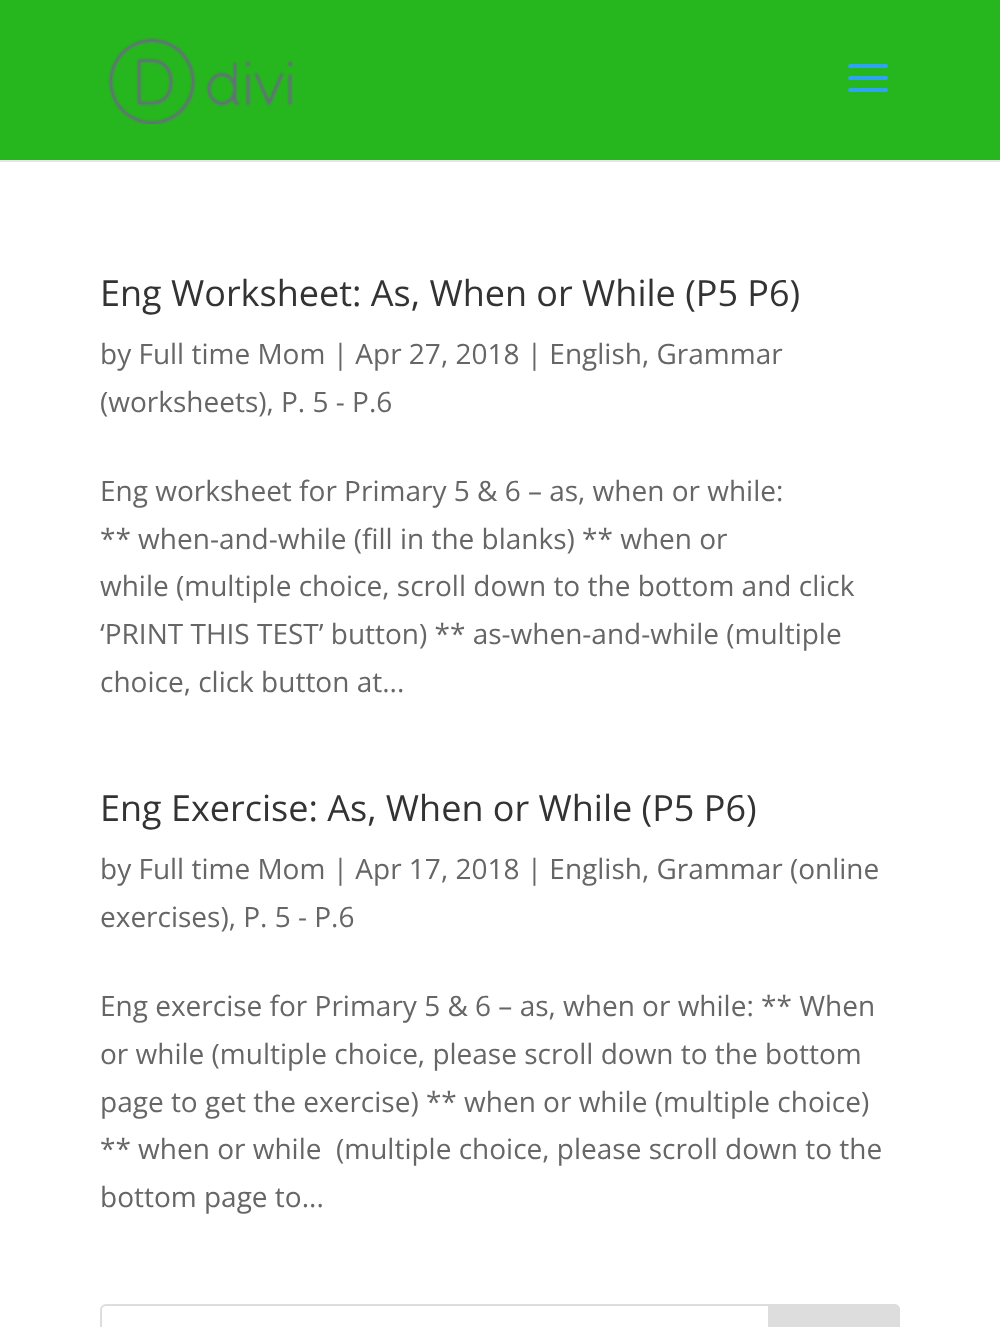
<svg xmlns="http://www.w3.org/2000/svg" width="1000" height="1327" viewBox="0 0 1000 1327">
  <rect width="100%" height="100%" fill="#fff"/>
  <path d="M0 160h1000v2H0z" fill="#e6e6e6"/>
  <path d="M0 0h1000v160H0z" fill="#26b71f"/>
  <image x="108" y="38" width="186" height="86" href="img/1.png"/>
  <image x="848" y="64" width="40" height="28" href="img/2.png"/>
  <rect x="101" y="1305" width="798" height="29" rx="5" fill="none" stroke="#ddd" stroke-width="2"/>
  <path d="M769 1305H894C897 1305 899 1307 899 1310V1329C899 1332 897 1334 894 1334H769Z" fill="#ddd" stroke="#ddd" stroke-width="2"/>
  <text x="100" y="306" font-family="Open Sans" font-size="36" fill="#333">Eng Worksheet: As, When or While (P5 P6)</text>
  <g font-family="Open Sans" font-size="28" fill="#666">
    <text x="100" y="364">by Full time Mom | Apr 27, 2018 | English, Grammar</text>
    <text x="100" y="412">(worksheets), P. 5 - P.6</text>
    <text x="100" y="501">Eng worksheet for Primary 5 &amp; 6 – as, when or while:</text>
    <text x="100" y="549">** when-and-while (fill in the blanks) ** when or</text>
    <text x="100" y="596">while (multiple choice, scroll down to the bottom and click</text>
    <text x="100" y="644">‘PRINT THIS TEST’ button) ** as-when-and-while (multiple</text>
    <text x="100" y="692">choice, click button at...</text>
  </g>
  <text x="100" y="821" font-family="Open Sans" font-size="36" fill="#333">Eng Exercise: As, When or While (P5 P6)</text>
  <g font-family="Open Sans" font-size="28" fill="#666">
    <text x="100" y="879">by Full time Mom | Apr 17, 2018 | English, Grammar (online</text>
    <text x="100" y="927">exercises), P. 5 - P.6</text>
    <text x="100" y="1016">Eng exercise for Primary 5 &amp; 6 – as, when or while: ** When</text>
    <text x="100" y="1064">or while (multiple choice, please scroll down to the bottom</text>
    <text x="100" y="1112">page to get the exercise) ** when or while (multiple choice)</text>
    <text x="100" y="1159" xml:space="preserve">** when or while  (multiple choice, please scroll down to the</text>
    <text x="100" y="1207">bottom page to...</text>
  </g>
</svg>
